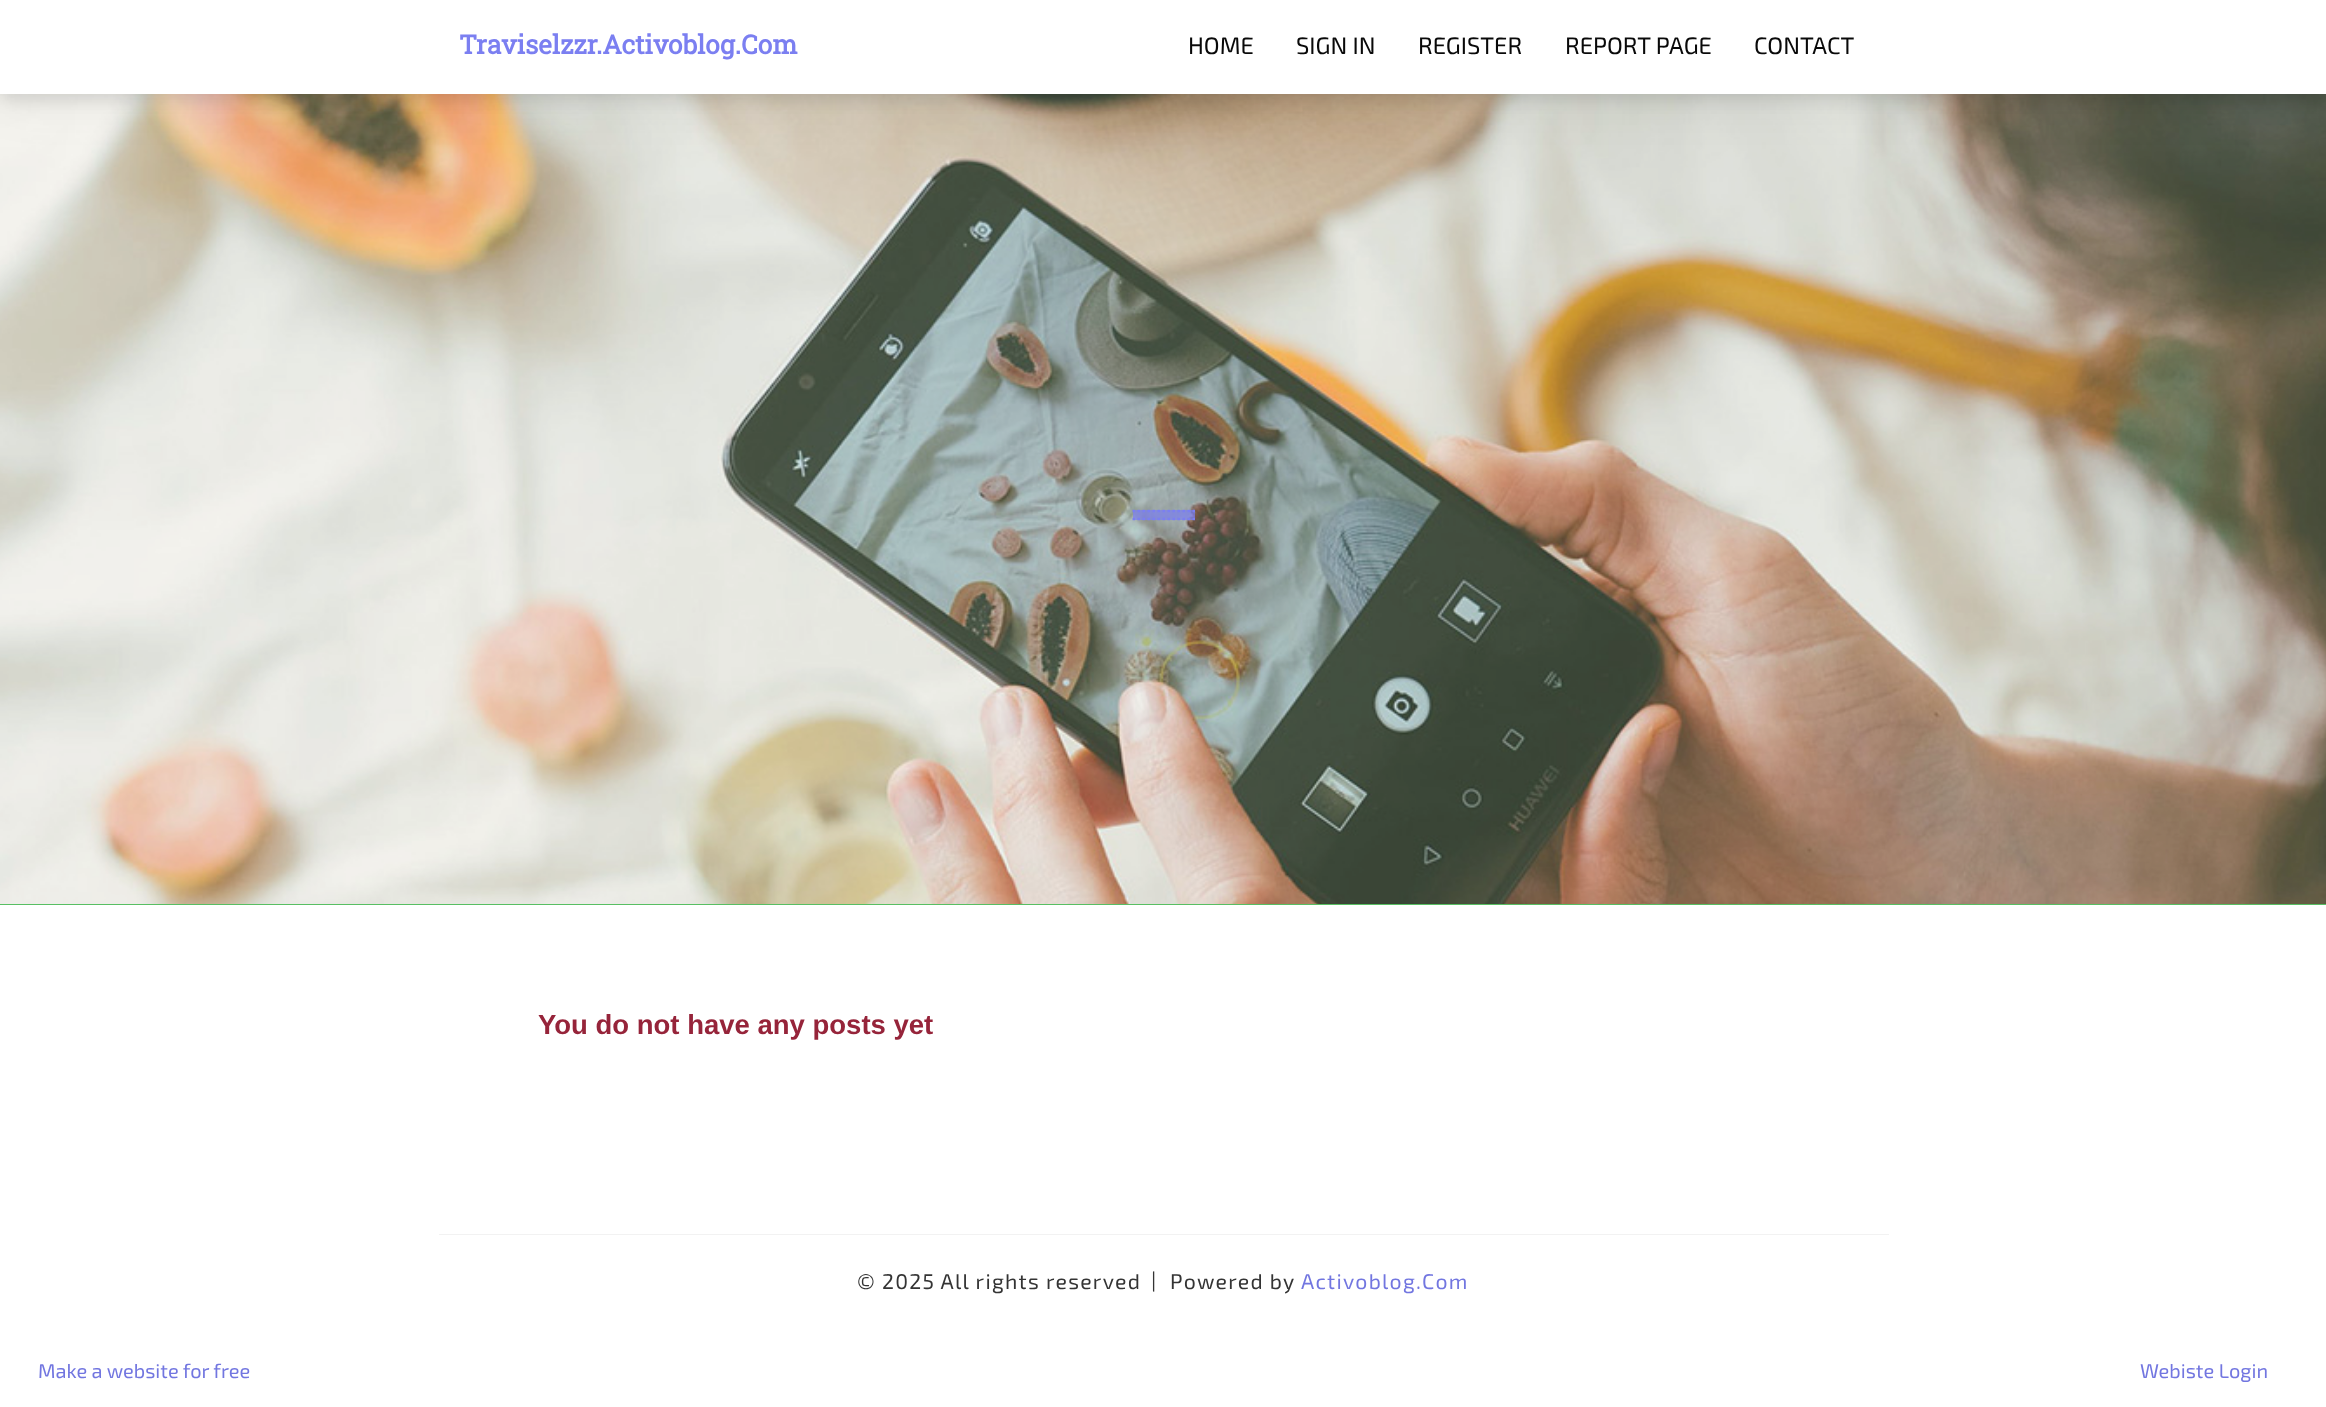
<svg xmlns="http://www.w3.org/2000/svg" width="2326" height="1407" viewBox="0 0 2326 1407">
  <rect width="100%" height="100%" fill="#fff"/>
  <image x="0" y="94" width="2326" height="810" href="img/1.png"/>
  <path d="M0 6h2326v94H0z" fill="#0000001a" filter="blur(7.5px)"/>
  <path d="M0 11h2326v94H0z" fill="#0000000d" filter="blur(24px)"/>
  <path d="M0 0h2326v94H0z" fill="#fff"/>
  <path d="M1133 510h62v10H1133z" fill="#7b7ff1b3"/>
  <path d="M1132.5 511H1195M1132.5 519H1195" fill="none" stroke="#7b7ff1" stroke-width="2.5" stroke-dasharray="2.5 2.5"/>
  <path d="M0 904h2326v1H0z" fill="#58bf63"/>
  <path d="M439 1234h1450v1H439z" fill="#f2f2f2"/>
  <text x="459" y="54" font-family="Roboto Slab" font-size="26.25" font-weight="bold" fill="#7b7ff1">Traviselzzr.Activoblog.Com</text>
  <g font-family="'Exo 2'" font-size="23.75" fill="#090909">
    <text x="1188" y="54">HOME</text>
    <text x="1296" y="54">SIGN IN</text>
    <text x="1418" y="54">REGISTER</text>
    <text x="1565" y="54">REPORT PAGE</text>
    <text x="1754" y="54">CONTACT</text>
  </g>
  <text x="538" y="1034" font-family="Liberation Sans" font-size="27.5" font-weight="bold" fill="#96243a">You do not have any posts yet</text>
  <g font-family="'Exo 2'" font-size="21.25" letter-spacing="1.25" fill="#343434">
    <text x="857" y="1289">© 2025 All rights reserved</text>
    <text x="1151" y="1288">|</text>
    <text x="1170" y="1289">Powered by</text>
  </g>
  <text x="1301" y="1289" font-family="'Exo 2'" font-size="21.25" letter-spacing="1.25" fill="#7276e0">Activoblog.Com</text>
  <g font-family="'Exo 2'" font-size="20" fill="#7276e0">
    <text x="38" y="1378">Make a website for free</text>
    <text x="2140" y="1378">Webiste Login</text>
  </g>
</svg>
